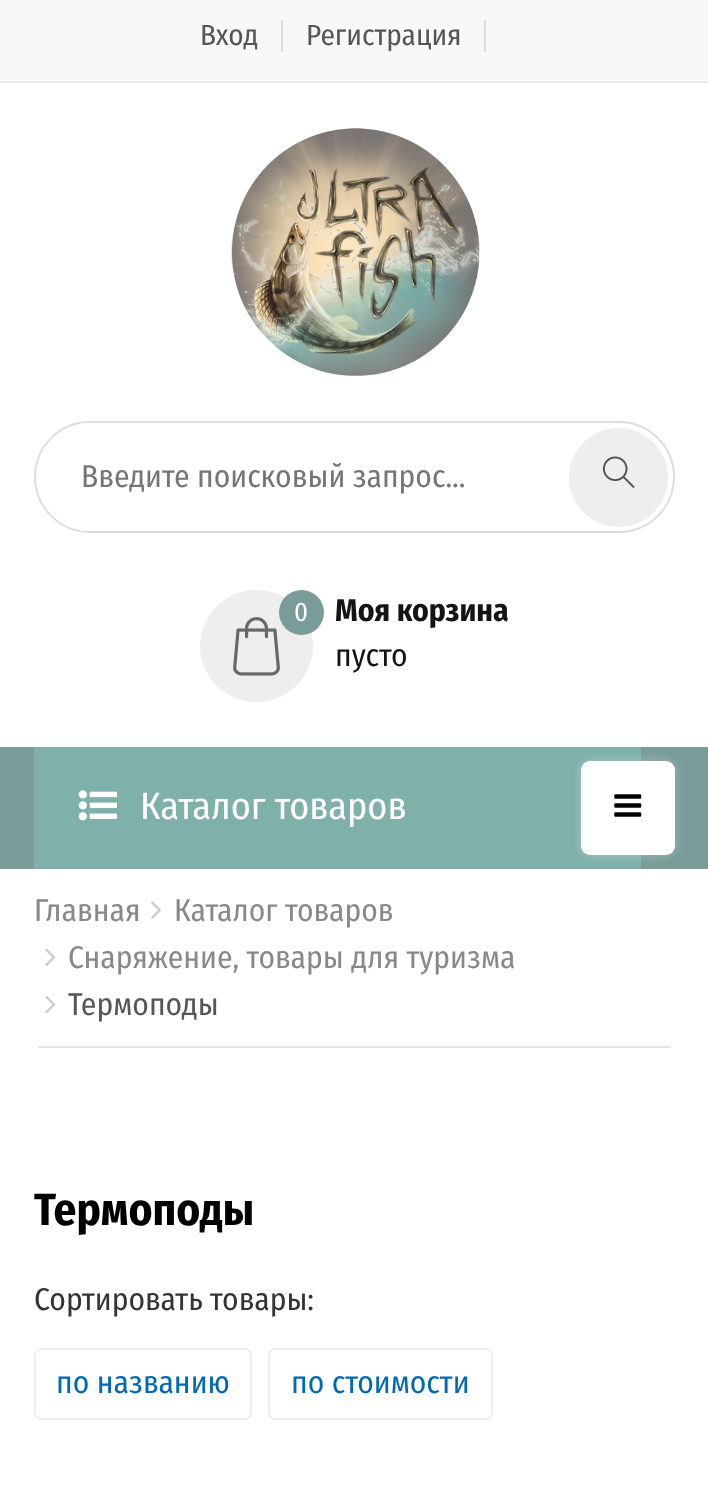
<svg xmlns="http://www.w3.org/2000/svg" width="708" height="1504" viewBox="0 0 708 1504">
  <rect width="100%" height="100%" fill="#fff"/>
  <path d="M0 0h708v81H0z" fill="#f8f8f8"/>
  <path d="M0 81h708v2H0z" fill="#ebebeb"/>
  <path d="M281 20h2v32H281z" fill="#ddd"/>
  <path d="M484 20h2v32H484z" fill="#ddd"/>
  <image x="231" y="128" width="249" height="248" href="img/1.png"/>
  <rect x="35" y="422" width="639" height="110" rx="55" fill="none" stroke="#ddd" stroke-width="2"/>
  <path d="M81 423H555C567.5 423 578 433.5 578 446V508C578 520.5 567.5 531 555 531H81Z" fill="#fff"/>
  <circle cx="618.5" cy="477.5" r="49.5" fill="#eee"/>
  <image x="602" y="456" width="33" height="32" href="img/2.png"/>
  <rect x="200" y="590" width="113" height="112" rx="56" fill="#eee"/>
  <image x="233" y="617" width="47" height="59" href="img/3.png"/>
  <circle cx="301.5" cy="612.5" r="22.5" fill="#799c98"/>
  <path d="M0 747h708v122H0z" fill="#799c98"/>
  <path d="M34 747h607v122H34z" fill="#7fb0aa"/>
  <image x="78" y="790" width="39" height="31" href="img/4.png"/>
  <rect x="581" y="761" width="94" height="94" rx="9" fill="#ffffff4d" filter="blur(5.5px)"/>
  <rect x="581" y="761" width="94" height="94" rx="9" fill="#fff"/>
  <image x="614" y="794" width="28" height="23" href="img/5.png"/>
  <path d="M38 1046h633v2H38z" fill="#e5e5e5"/>
  <image x="151" y="901" width="10" height="18" href="img/6.png"/>
  <image x="45" y="948" width="11" height="18" href="img/7.png"/>
  <image x="45" y="996" width="11" height="18" href="img/8.png"/>
  <rect x="35" y="1349" width="216" height="70" rx="6" fill="none" stroke="#eee" stroke-width="2"/>
  <rect x="269" y="1349" width="223" height="70" rx="6" fill="none" stroke="#eee" stroke-width="2"/>
  <g font-family="Fira Sans Condensed" font-size="29.25" fill="#555">
    <text x="200" y="45">Вход</text>
    <text x="306" y="45">Регистрация</text>
  </g>
  <text x="81" y="487" font-family="Fira Sans Condensed" font-size="31.5" fill="#757575">Введите поисковый запрос...</text>
  <text x="335" y="621" font-family="Fira Sans Condensed" font-size="31.5" font-weight="bold" fill="#141414">Моя корзина</text>
  <text x="294" y="621" font-family="Fira Sans Condensed" font-size="27" fill="#fff">0</text>
  <text x="335" y="666" font-family="Fira Sans Condensed" font-size="31.5" fill="#141414">пусто</text>
  <text x="140" y="819" font-family="Fira Sans Condensed" font-size="38.25" fill="#fff">Каталог товаров</text>
  <g font-family="Fira Sans Condensed" font-size="31.5" fill="#888">
    <text x="34" y="921">Главная</text>
    <text x="174" y="921">Каталог товаров</text>
    <text x="68" y="968">Снаряжение, товары для туризма</text>
  </g>
  <text x="68" y="1015" font-family="Fira Sans Condensed" font-size="31.5" fill="#555">Термоподы</text>
  <text x="34" y="1225" font-family="Fira Sans Condensed" font-size="45" font-weight="bold" fill="#000">Термоподы</text>
  <text x="34" y="1310" font-family="Fira Sans Condensed" font-size="31.5" fill="#333">Сортировать товары:</text>
  <g font-family="Fira Sans Condensed" font-size="31.5" fill="#0168b8">
    <text x="56" y="1393">по названию</text>
    <text x="291" y="1393">по стоимости</text>
  </g>
</svg>
